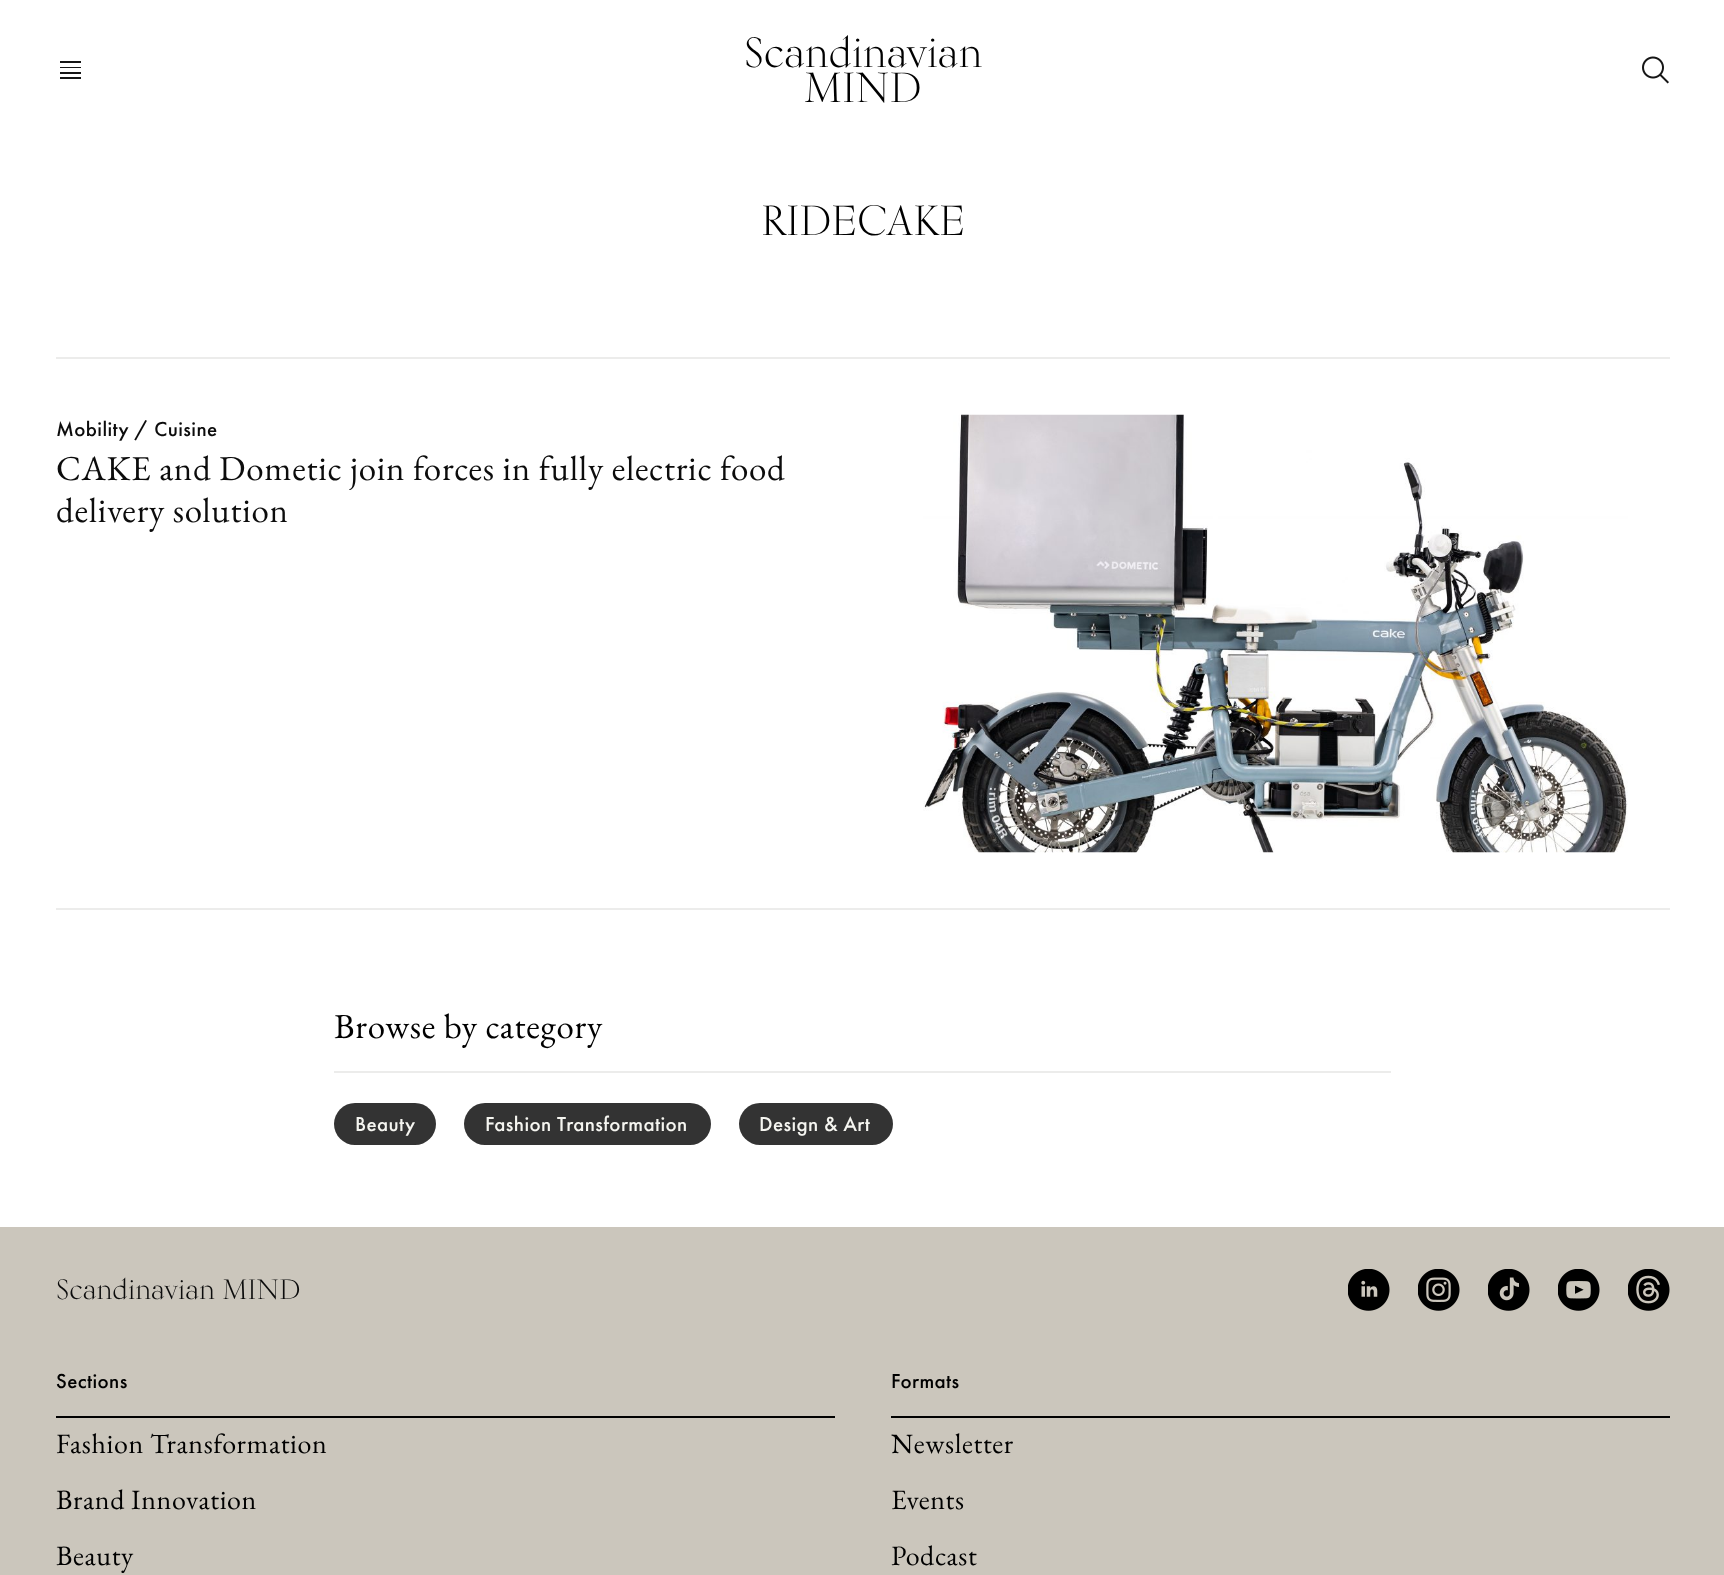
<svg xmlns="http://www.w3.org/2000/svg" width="1724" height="1575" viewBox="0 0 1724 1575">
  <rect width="100%" height="100%" fill="#fff"/>
  <path d="M60 61h21v2H60z" fill="#161616"/>
  <path d="M60 77h21v2H60z" fill="#161616"/>
  <path d="M60 67h21v1H60z" fill="#161616"/>
  <path d="M60 72h21v2H60z" fill="#161616"/>
  <image x="1642" y="56" width="27" height="28" href="img/1.png"/>
  <path d="M56 357h1614v2H56z" fill="#ececeb"/>
  <image x="923" y="414" width="705" height="439" href="img/2.png"/>
  <path d="M56 908h1614v2H56z" fill="#ececeb"/>
  <path d="M334 1071h1057v2H334z" fill="#ececeb"/>
  <rect x="334" y="1103" width="102" height="42" rx="21" fill="#333"/>
  <rect x="464" y="1103" width="247" height="42" rx="21" fill="#333"/>
  <rect x="739" y="1103" width="154" height="42" rx="21" fill="#333"/>
  <path d="M0 1227h1724v348H0z" fill="#cbc6bc"/>
  <image x="1348" y="1269" width="42" height="42" href="img/3.png"/>
  <image x="1418" y="1269" width="42" height="42" href="img/4.png"/>
  <image x="1488" y="1269" width="42" height="42" href="img/5.png"/>
  <image x="1558" y="1269" width="42" height="42" href="img/6.png"/>
  <image x="1628" y="1269" width="42" height="42" href="img/7.png"/>
  <path d="M56 1416h779v2H56z" fill="#000"/>
  <path d="M891 1416h779v2H891z" fill="#000"/>
  <g font-family="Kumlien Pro" font-size="42" fill="#000">
    <text x="744" y="67">Scandinavian</text>
    <text x="804" y="102">MIND</text>
    <text x="761" y="235">RIDECAKE</text>
  </g>
  <text x="56" y="436" font-family="Futura PT" font-size="21" font-weight="500" letter-spacing="0.4" fill="#0c0c0c">Mobility / Cuisine</text>
  <g font-family="EB Garamond" font-size="35" letter-spacing="0.7" fill="#0c0c0c">
    <text x="56" y="480">CAKE and Dometic join forces in fully electric food</text>
    <text x="56" y="522">delivery solution</text>
  </g>
  <text x="334" y="1038" font-family="EB Garamond" font-size="35" letter-spacing="0.7" fill="#000">Browse by category</text>
  <g font-family="Futura PT" font-size="21" font-weight="500" letter-spacing="0.4" fill="#f5f5f0">
    <text x="355" y="1131">Beauty</text>
    <text x="485" y="1131">Fashion Transformation</text>
    <text x="759" y="1131">Design &amp; Art</text>
  </g>
  <text x="56" y="1299" font-family="Kumlien Pro" font-size="28" fill="#0c0c0c">Scandinavian MIND</text>
  <text x="56" y="1388" font-family="Futura PT" font-size="21" font-weight="500" letter-spacing="0.4" fill="#000">Sections</text>
  <g font-family="EB Garamond" font-size="28" letter-spacing="0.6" fill="#000">
    <text x="56" y="1453">Fashion Transformation</text>
    <text x="56" y="1509">Brand Innovation</text>
    <text x="56" y="1565">Beauty</text>
  </g>
  <text x="891" y="1388" font-family="Futura PT" font-size="21" font-weight="500" letter-spacing="0.4" fill="#000">Formats</text>
  <g font-family="EB Garamond" font-size="28" letter-spacing="0.6" fill="#000">
    <text x="891" y="1453">Newsletter</text>
    <text x="891" y="1509">Events</text>
    <text x="891" y="1565">Podcast</text>
  </g>
</svg>
